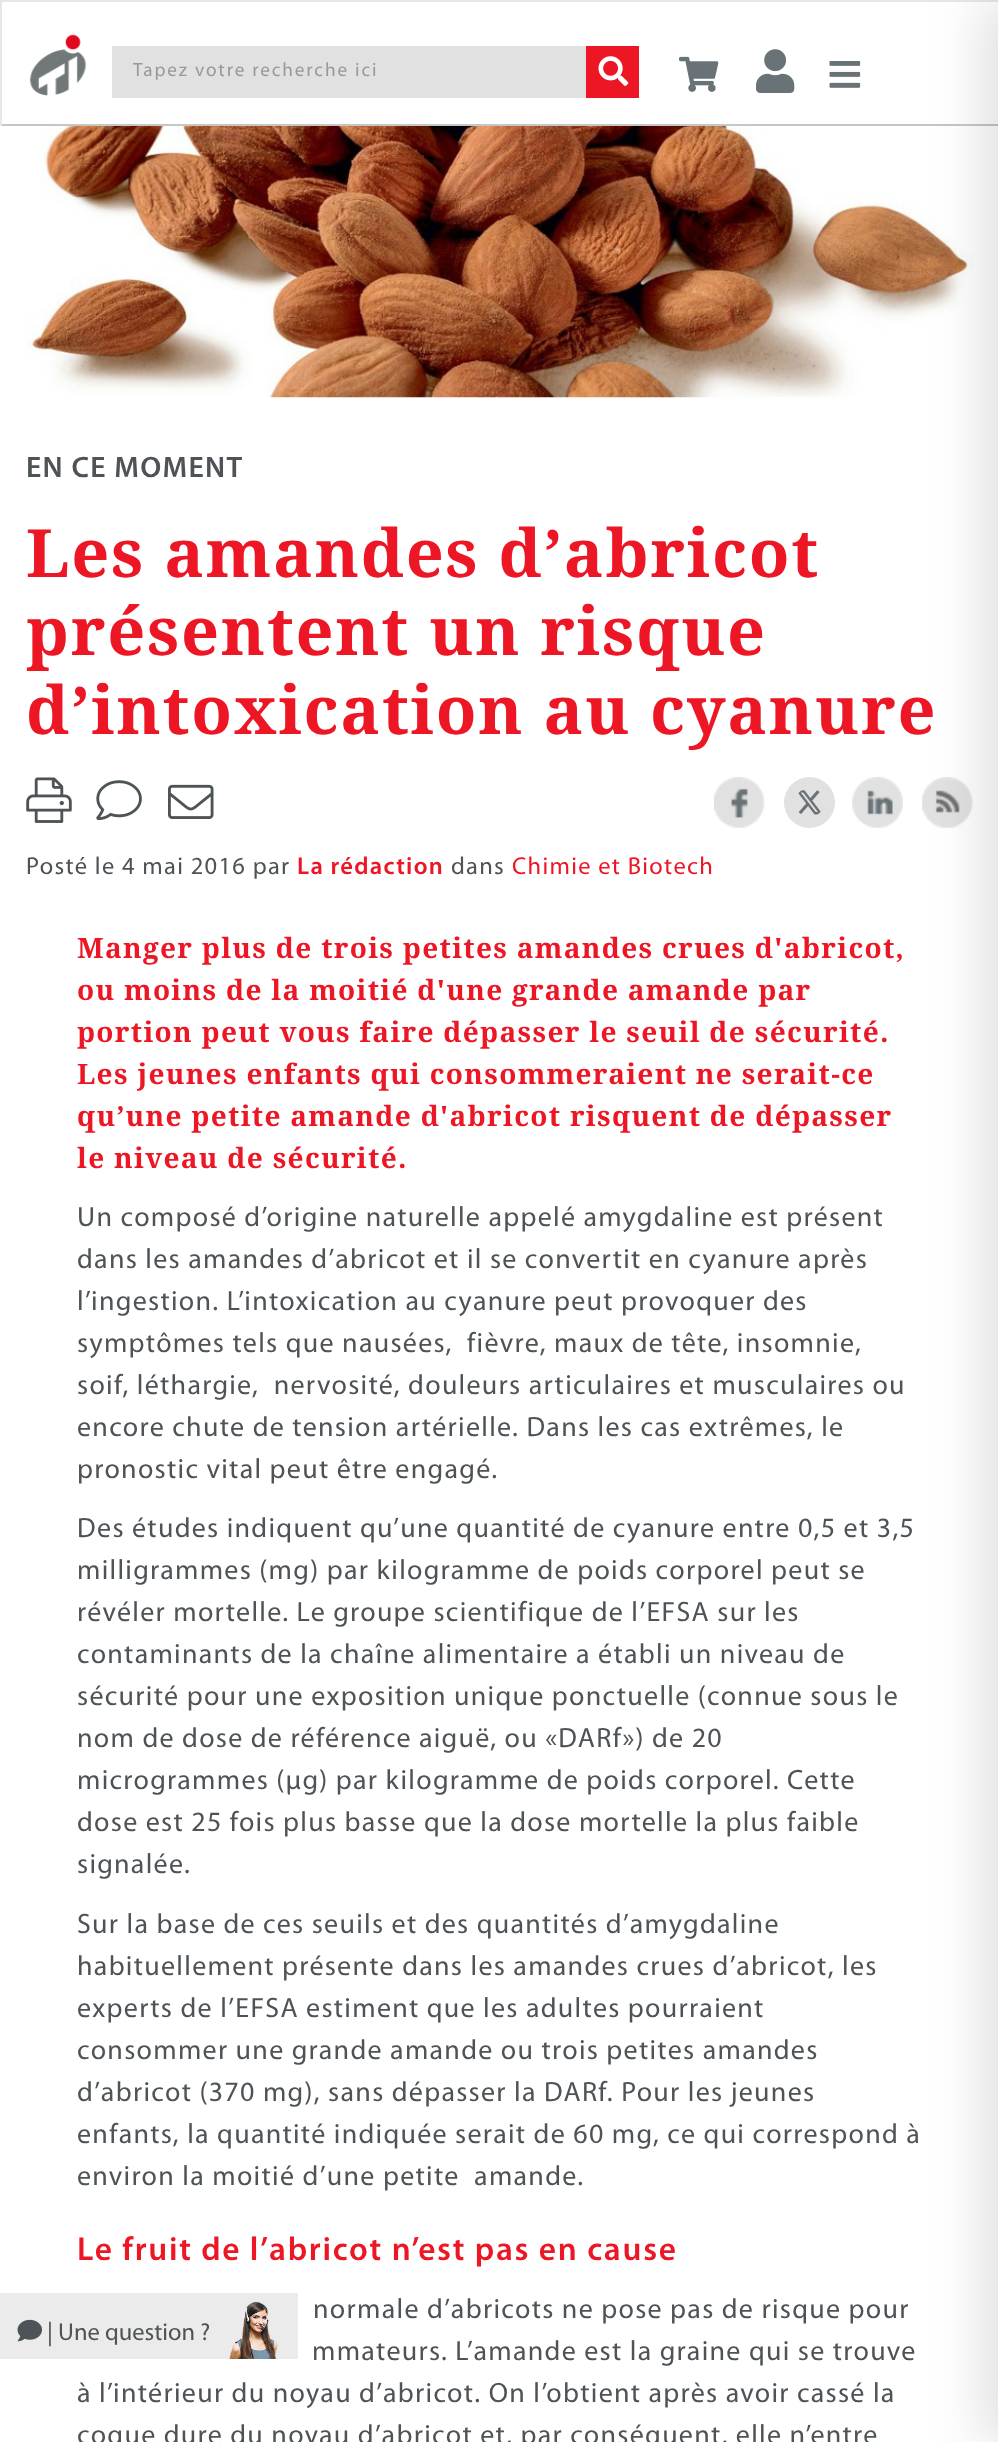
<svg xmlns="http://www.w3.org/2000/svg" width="998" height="2442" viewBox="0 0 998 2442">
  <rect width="100%" height="100%" fill="#fff"/>
  <path d="M0 0h998v2H0z" fill="#e7e7e7"/>
  <path d="M0 124h998v2H0z" fill="#c6c6c6"/>
  <path d="M0 0h2v126H0z" fill="#e7e7e7"/>
  <image x="29" y="34" width="58" height="62" href="img/1.png"/>
  <path d="M112 46h474v52H112z" fill="#e2e1e1"/>
  <path d="M586 46h53v52H586z" fill="#ec1625"/>
  <image x="598" y="56" width="31" height="30" href="img/2.png"/>
  <image x="679" y="56" width="40" height="36" href="img/3.png"/>
  <image x="756" y="49" width="39" height="44" href="img/4.png"/>
  <image x="829" y="61" width="32" height="27" href="img/5.png"/>
  <image x="26" y="126" width="947" height="272" href="img/6.png"/>
  <image x="922" y="777" width="51" height="51" href="img/13.png"/>
  <path d="M982 0h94v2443H982z" fill="#0000001f" filter="blur(26px)"/>
  <image x="26" y="777" width="46" height="46" href="img/7.png"/>
  <image x="96" y="780" width="46" height="41" href="img/8.png"/>
  <image x="168" y="784" width="46" height="35" href="img/9.png"/>
  <image x="714" y="777" width="51" height="51" href="img/10.png"/>
  <circle cx="809.5" cy="802.5" r="25.5" fill="#e2e1e1"/>
  <image x="798" y="790" width="23" height="25" href="img/11.png"/>
  <image x="852" y="777" width="51" height="51" href="img/12.png"/>
  <path d="M0 2293h298v66H0z" fill="#ebebeb"/>
  <image x="17" y="2319" width="25" height="23" href="img/14.png"/>
  <image x="229" y="2302" width="49" height="57" href="img/15.png"/>
  <text x="133" y="76" font-family="Myriad" font-size="19.25" letter-spacing="1.9" fill="#999">Tapez votre recherche ici</text>
  <text x="26" y="477" font-family="Myriad" font-size="29.75" font-weight="600" letter-spacing="1.3" fill="#4d5356">EN CE MOMENT</text>
  <g font-family="Droid Serif" font-size="66.5" font-weight="bold" letter-spacing="1.75" fill="#ec1625">
    <text x="26" y="577">Les amandes d’abricot</text>
    <text x="26" y="655">présentent un risque</text>
    <text x="26" y="734">d’intoxication au cyanure</text>
  </g>
  <text x="26" y="874" font-family="Myriad" font-size="24.5" letter-spacing="1.3" fill="#4d5356">Posté le 4 mai 2016 par</text>
  <text x="297" y="874" font-family="Myriad" font-size="24.5" font-weight="600" letter-spacing="1.3" fill="#ec1625">La rédaction</text>
  <text x="451" y="874" font-family="Myriad" font-size="24.5" letter-spacing="1.3" fill="#4d5356">dans</text>
  <text x="512" y="874" font-family="Myriad" font-size="24.5" letter-spacing="1.3" fill="#ec1625">Chimie et Biotech</text>
  <g font-family="Droid Serif" font-size="28" font-weight="bold" letter-spacing="1.3" fill="#ec1625">
    <text x="77" y="958">Manger plus de trois petites amandes crues d'abricot,</text>
    <text x="77" y="1000">ou moins de la moitié d'une grande amande par</text>
    <text x="77" y="1042">portion peut vous faire dépasser le seuil de sécurité.</text>
    <text x="77" y="1084">Les jeunes enfants qui consommeraient ne serait-ce</text>
    <text x="77" y="1126">qu’une petite amande d'abricot risquent de dépasser</text>
    <text x="77" y="1168">le niveau de sécurité.</text>
  </g>
  <g font-family="Myriad" font-size="28" letter-spacing="1.3" fill="#4d5356">
    <text x="77" y="1226">Un composé d’origine naturelle appelé amygdaline est présent</text>
    <text x="77" y="1268">dans les amandes d’abricot et il se convertit en cyanure après</text>
    <text x="77" y="1310">l’ingestion. L’intoxication au cyanure peut provoquer des</text>
    <text x="77" y="1352" xml:space="preserve">symptômes tels que nausées,  fièvre, maux de tête, insomnie,</text>
    <text x="77" y="1394" xml:space="preserve">soif, léthargie,  nervosité, douleurs articulaires et musculaires ou</text>
    <text x="77" y="1436">encore chute de tension artérielle. Dans les cas extrêmes, le</text>
    <text x="77" y="1478">pronostic vital peut être engagé.</text>
    <text x="77" y="1537">Des études indiquent qu’une quantité de cyanure entre 0,5 et 3,5</text>
    <text x="77" y="1579">milligrammes (mg) par kilogramme de poids corporel peut se</text>
    <text x="77" y="1621">révéler mortelle. Le groupe scientifique de l’EFSA sur les</text>
    <text x="77" y="1663">contaminants de la chaîne alimentaire a établi un niveau de</text>
    <text x="77" y="1705">sécurité pour une exposition unique ponctuelle (connue sous le</text>
    <text x="77" y="1747">nom de dose de référence aiguë, ou «DARf») de 20</text>
    <text x="77" y="1789">microgrammes (µg) par kilogramme de poids corporel. Cette</text>
    <text x="77" y="1831">dose est 25 fois plus basse que la dose mortelle la plus faible</text>
    <text x="77" y="1873">signalée.</text>
    <text x="77" y="1933">Sur la base de ces seuils et des quantités d’amygdaline</text>
    <text x="77" y="1975">habituellement présente dans les amandes crues d’abricot, les</text>
    <text x="77" y="2017">experts de l’EFSA estiment que les adultes pourraient</text>
    <text x="77" y="2059">consommer une grande amande ou trois petites amandes</text>
    <text x="77" y="2101">d’abricot (370 mg), sans dépasser la DARf. Pour les jeunes</text>
    <text x="77" y="2143">enfants, la quantité indiquée serait de 60 mg, ce qui correspond à</text>
    <text x="77" y="2185" xml:space="preserve">environ la moitié d’une petite  amande.</text>
  </g>
  <text x="77" y="2260" font-family="Myriad" font-size="33.25" font-weight="600" letter-spacing="1.75" fill="#ec1625">Le fruit de l’abricot n’est pas en cause</text>
  <g font-family="Myriad" font-size="28" letter-spacing="1.3" fill="#4d5356">
    <text x="313" y="2318">normale d’abricots ne pose pas de risque pour</text>
    <text x="312" y="2360">mmateurs. L’amande est la graine qui se trouve</text>
    <text x="77" y="2402">à l’intérieur du noyau d’abricot. On l’obtient après avoir cassé la</text>
    <text x="77" y="2444">coque dure du noyau d’abricot et, par conséquent, elle n’entre</text>
  </g>
  <text x="47" y="2340" font-family="Myriad" font-size="24.5" fill="#4d5356">| Une question ?</text>
</svg>
